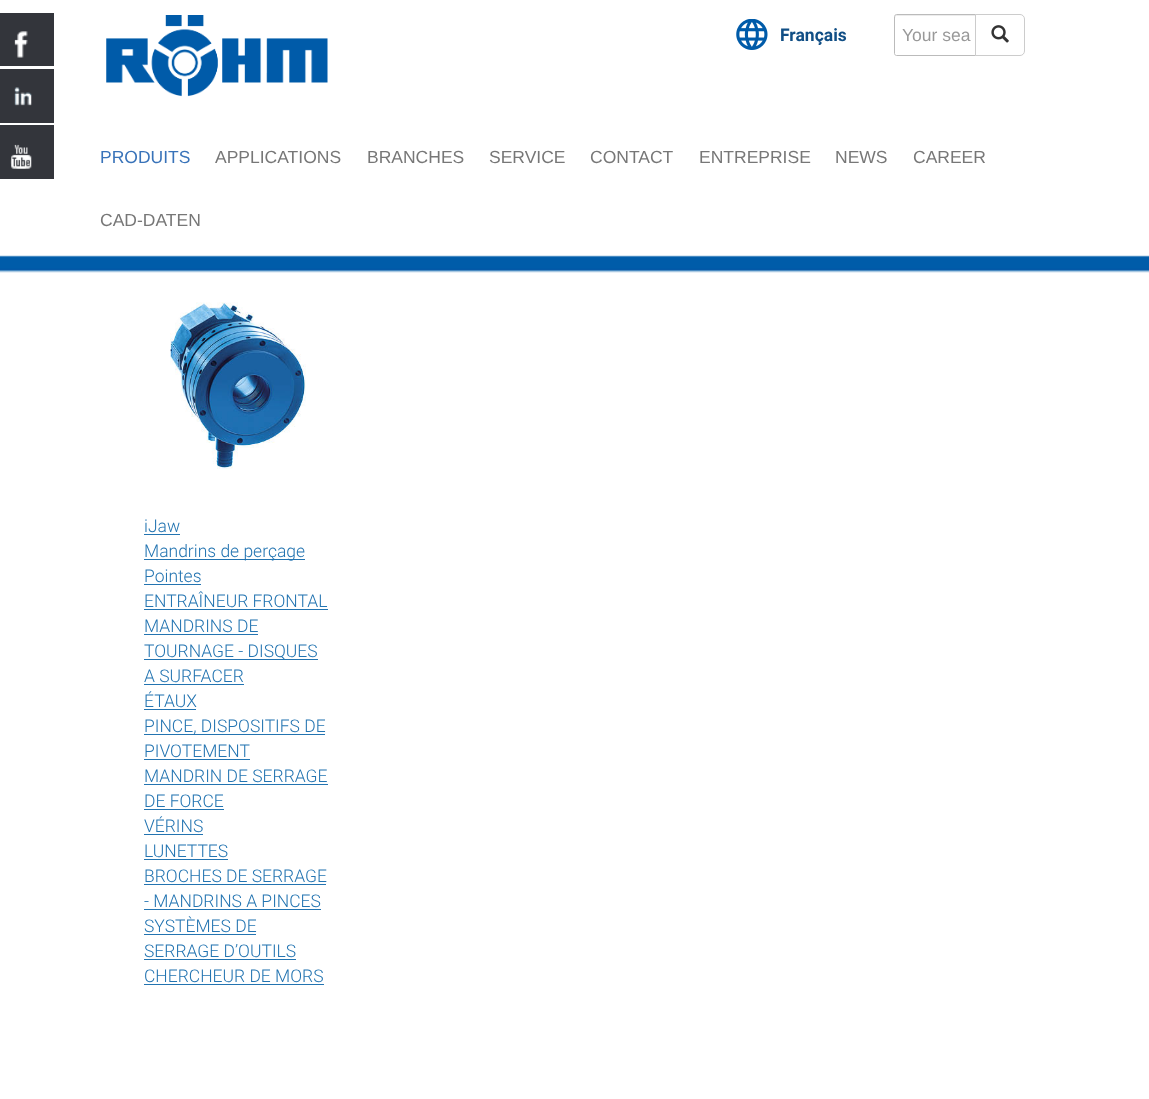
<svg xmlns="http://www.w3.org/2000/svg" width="1149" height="1099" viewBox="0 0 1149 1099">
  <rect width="100%" height="100%" fill="#fff"/>
  <path d="M0 13h54v53H0z" fill="#33353b"/>
  <image x="14" y="31" width="14" height="27" href="img/1.png"/>
  <path d="M0 69h54v54H0z" fill="#33353b"/>
  <image x="14" y="87" width="18" height="19" href="img/2.png"/>
  <path d="M0 125h54v54H0z" fill="#33353b"/>
  <image x="10" y="144" width="22" height="25" href="img/3.png"/>
  <image x="0" y="255" width="1149" height="18" href="img/4.png"/>
  <image x="106" y="15" width="222" height="82" href="img/5.png"/>
  <image x="736" y="19" width="32" height="31" href="img/6.png"/>
  <path d="M896 16H975V15H896C895 15 895 15 895 16V18Z" fill="#ececec"/>
  <path d="M896.5 14.5H975.5V55.5H896.5C895.5 55.5 894.5 54.5 894.5 53.5V16.5C894.5 15.5 895.5 14.5 896.5 14.5Z" fill="none" stroke="#bbb"/>
  <path d="M975.5 14.5H1020C1022.5 14.5 1024.5 16.5 1024.5 19V51C1024.5 53.5 1022.5 55.5 1020 55.5H975.5Z" fill="#fff" stroke="#ccc"/>
  <image x="991" y="25" width="18" height="18" href="img/7.png"/>
  <image x="170" y="302" width="136" height="167" href="img/8.png"/>
  <path d="M144 534h36v1H144z" fill="#2374b1"/>
  <path d="M144 559h161v1H144z" fill="#2374b1"/>
  <path d="M144 584h57v1H144z" fill="#2374b1"/>
  <path d="M144 609h184v1H144z" fill="#2374b1"/>
  <path d="M144 634h114v1H144z" fill="#2374b1"/>
  <path d="M144 659h174v1H144z" fill="#2374b1"/>
  <path d="M144 684h100v1H144z" fill="#2374b1"/>
  <path d="M144 709h52v1H144z" fill="#2374b1"/>
  <path d="M144 734h181v1H144z" fill="#2374b1"/>
  <path d="M144 759h106v1H144z" fill="#2374b1"/>
  <path d="M144 784h184v1H144z" fill="#2374b1"/>
  <path d="M144 809h80v1H144z" fill="#2374b1"/>
  <path d="M144 834h59v1H144z" fill="#2374b1"/>
  <path d="M144 859h84v1H144z" fill="#2374b1"/>
  <path d="M144 884h182v1H144z" fill="#2374b1"/>
  <path d="M144 909h177v1H144z" fill="#2374b1"/>
  <path d="M144 934h112v1H144z" fill="#2374b1"/>
  <path d="M144 959h152v1H144z" fill="#2374b1"/>
  <path d="M144 984h180v1H144z" fill="#2374b1"/>
  <text x="780" y="41" font-family="Roboto" font-size="17.5" font-weight="bold" fill="#104e85">Français</text>
  <text x="902" y="41" font-family="Liberation Sans" font-size="17.5" fill="#999">Your sea</text>
  <text x="100" y="163" font-family="Liberation Sans" font-size="17.5" fill="#3973b9">PRODUITS</text>
  <g font-family="Liberation Sans" font-size="17.5" fill="#777">
    <text x="215" y="163">APPLICATIONS</text>
    <text x="367" y="163">BRANCHES</text>
    <text x="489" y="163">SERVICE</text>
    <text x="590" y="163">CONTACT</text>
    <text x="699" y="163">ENTREPRISE</text>
    <text x="835" y="163">NEWS</text>
    <text x="913" y="163">CAREER</text>
    <text x="100" y="226">CAD-DATEN</text>
  </g>
  <g font-family="Roboto" font-size="17.5" font-weight="300" fill="#2374b1">
    <text x="144" y="532">iJaw</text>
    <text x="144" y="557">Mandrins de perçage</text>
    <text x="144" y="582">Pointes</text>
    <text x="144" y="607">ENTRAÎNEUR FRONTAL</text>
    <text x="144" y="632">MANDRINS DE</text>
    <text x="144" y="657">TOURNAGE - DISQUES</text>
    <text x="144" y="682">A SURFACER</text>
    <text x="144" y="707">ÉTAUX</text>
    <text x="144" y="732">PINCE, DISPOSITIFS DE</text>
    <text x="144" y="757">PIVOTEMENT</text>
    <text x="144" y="782">MANDRIN DE SERRAGE</text>
    <text x="144" y="807">DE FORCE</text>
    <text x="144" y="832">VÉRINS</text>
    <text x="144" y="857">LUNETTES</text>
    <text x="144" y="882">BROCHES DE SERRAGE</text>
    <text x="144" y="907">- MANDRINS A PINCES</text>
    <text x="144" y="932">SYSTÈMES DE</text>
    <text x="144" y="957">SERRAGE D’OUTILS</text>
    <text x="144" y="982">CHERCHEUR DE MORS</text>
  </g>
</svg>
